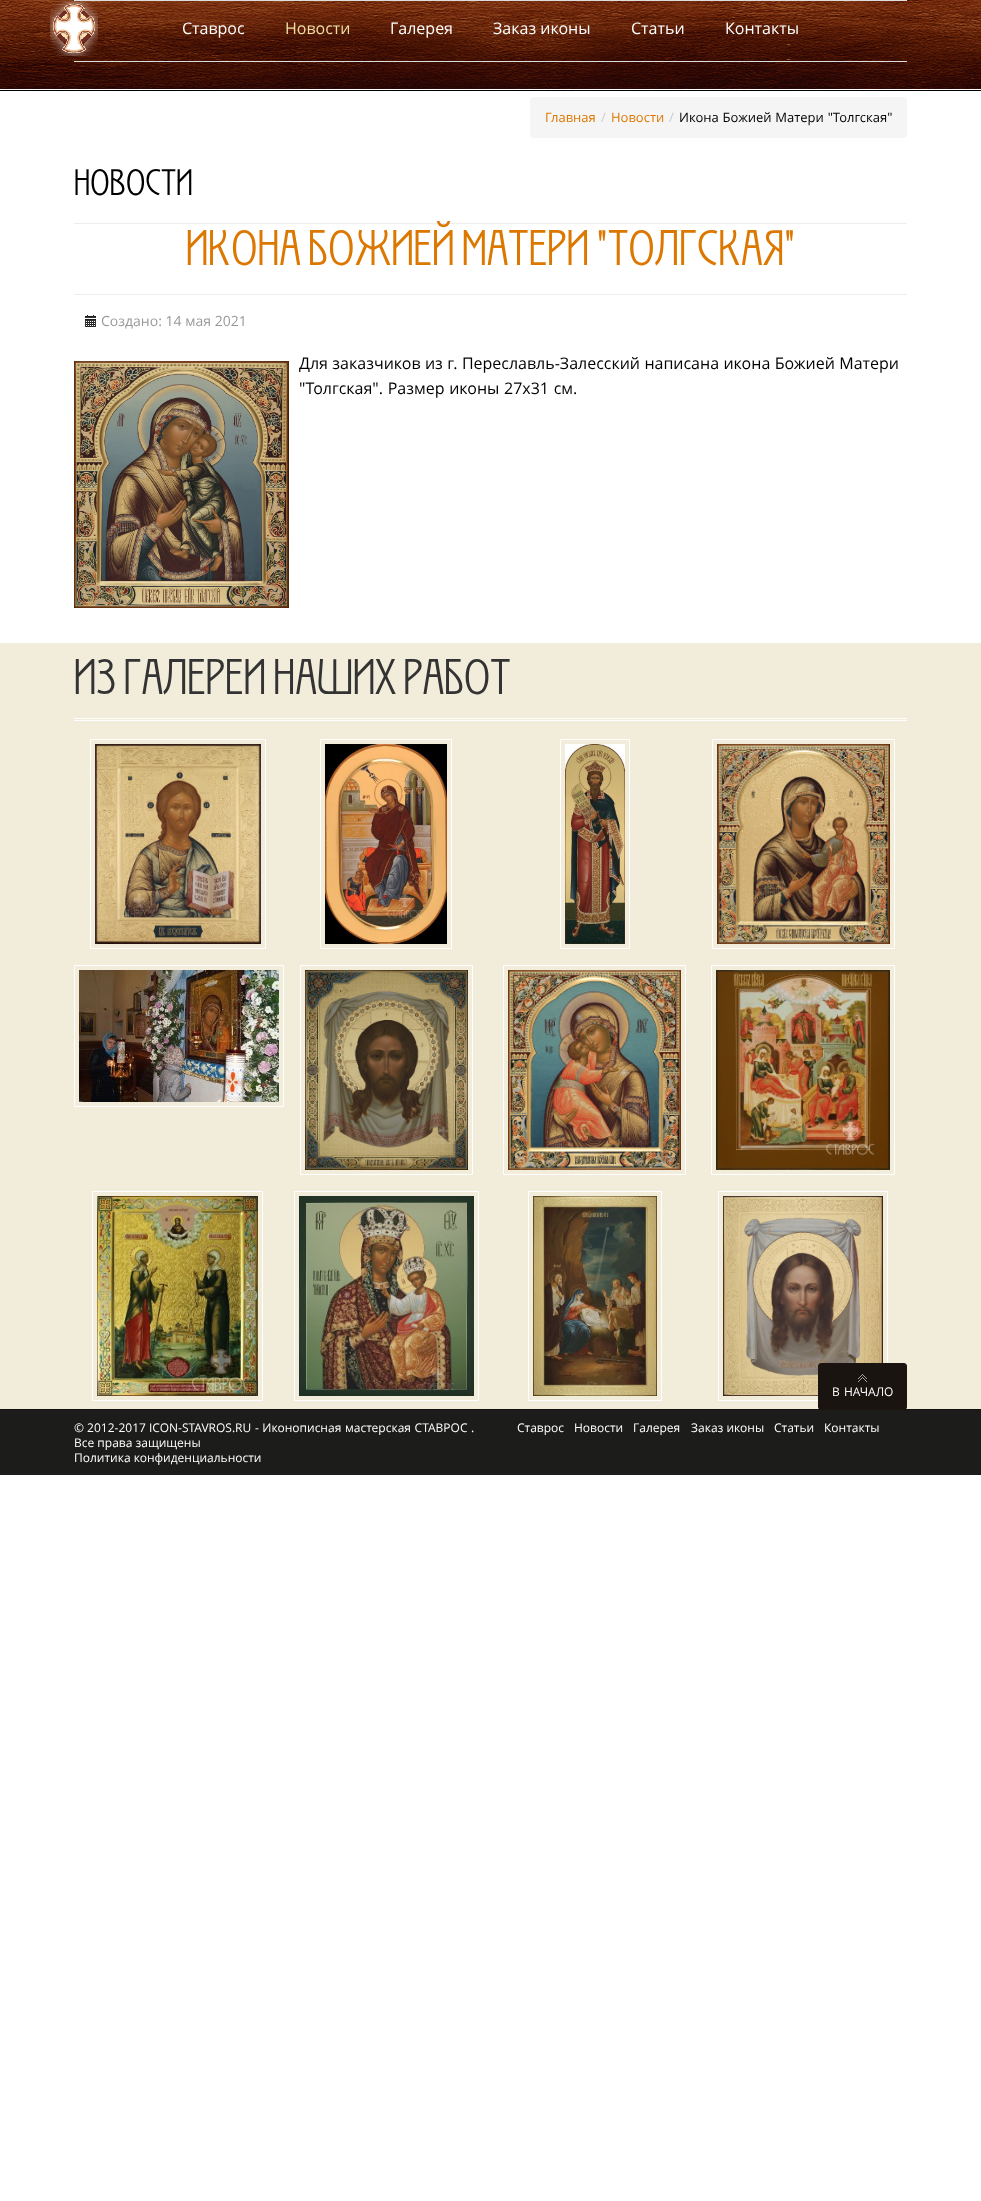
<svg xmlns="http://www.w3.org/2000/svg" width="981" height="2201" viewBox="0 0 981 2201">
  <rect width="100%" height="100%" fill="#fff"/>
  <image x="0" y="0" width="981" height="90" href="img/1.png"/>
  <path d="M0 90h981v1H0z" fill="#000"/>
  <image x="50" y="1" width="48" height="55" href="img/2.png"/>
  <path d="M74 0h833v1H74z" fill="#ddd"/>
  <path d="M74 61h833v1H74z" fill="#ddd"/>
  <rect x="530" y="97" width="377" height="41" rx="4" fill="#f5f5f5"/>
  <path d="M74 223h833v1H74z" fill="#eee"/>
  <path d="M74 294h833v1H74z" fill="#eee"/>
  <image x="85" y="315" width="11" height="12" href="img/3.png"/>
  <image x="74" y="361" width="215" height="247" href="img/4.png"/>
  <path d="M0 643h981v766H0z" fill="#f2eddb"/>
  <path d="M74 718h833v1H74z" fill="#fff"/>
  <path d="M74 720h833v1H74z" fill="#fff"/>
  <path d="M90.5 739.5h175v209H90.5z" fill="none" stroke="#fff"/>
  <image x="95" y="744" width="166" height="200" href="img/5.png"/>
  <path d="M320.5 739.5h131v209H320.5z" fill="none" stroke="#fff"/>
  <image x="325" y="744" width="122" height="200" href="img/6.png"/>
  <path d="M560.5 739.5h69v209H560.5z" fill="none" stroke="#fff"/>
  <image x="565" y="744" width="60" height="200" href="img/7.png"/>
  <path d="M712.5 739.5h182v209H712.5z" fill="none" stroke="#fff"/>
  <image x="717" y="744" width="173" height="200" href="img/8.png"/>
  <path d="M74.5 965.5h209v141H74.5z" fill="none" stroke="#fff"/>
  <image x="79" y="970" width="200" height="132" href="img/9.png"/>
  <path d="M300.5 965.5h172v209H300.5z" fill="none" stroke="#fff"/>
  <image x="305" y="970" width="163" height="200" href="img/10.png"/>
  <path d="M503.5 965.5h182v209H503.5z" fill="none" stroke="#fff"/>
  <image x="508" y="970" width="173" height="200" href="img/11.png"/>
  <path d="M711.5 965.5h183v209H711.5z" fill="none" stroke="#fff"/>
  <image x="716" y="970" width="174" height="200" href="img/12.png"/>
  <path d="M92.5 1191.5h170v209H92.5z" fill="none" stroke="#fff"/>
  <image x="97" y="1196" width="161" height="200" href="img/13.png"/>
  <path d="M294.5 1191.5h184v209H294.5z" fill="none" stroke="#fff"/>
  <image x="299" y="1196" width="175" height="200" href="img/14.png"/>
  <path d="M528.5 1191.5h133v209H528.5z" fill="none" stroke="#fff"/>
  <image x="533" y="1196" width="124" height="200" href="img/15.png"/>
  <path d="M718.5 1191.5h169v209H718.5z" fill="none" stroke="#fff"/>
  <image x="723" y="1196" width="160" height="200" href="img/16.png"/>
  <path d="M0 1410h981v65H0z" fill="#1c1c1b"/>
  <path d="M0 1409h981v1H0z" fill="#111110"/>
  <rect x="818.5" y="1363.5" width="88" height="46" rx="2.5" fill="#191410" stroke="#1a1512"/>
  <image x="858" y="1374" width="9" height="8" href="img/17.png"/>
  <text x="182" y="34" font-family="Open Sans" font-size="16" fill="#fff">Ставрос</text>
  <text x="285" y="34" font-family="Open Sans" font-size="16" fill="#f0dfa7">Новости</text>
  <g font-family="Open Sans" font-size="16" fill="#fff">
    <text x="390" y="34">Галерея</text>
    <text x="493" y="34">Заказ иконы</text>
    <text x="631" y="34">Статьи</text>
    <text x="725" y="34">Контакты</text>
  </g>
  <text x="545" y="122" font-family="Open Sans" font-size="13" fill="#dc7700">Главная</text>
  <text x="601" y="122" font-family="Open Sans" font-size="13" fill="#ccc">/</text>
  <text x="611" y="122" font-family="Open Sans" font-size="13" fill="#dc7700">Новости</text>
  <text x="669" y="122" font-family="Open Sans" font-size="13" fill="#ccc">/</text>
  <text x="679" y="122" word-spacing="0.5" font-family="Open Sans" font-size="13" fill="#000">Икона Божией Матери "Толгская"</text>
  <text x="74" y="195" font-family="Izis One" font-size="38.5" font-weight="300" fill="#000">Новости</text>
  <text x="186" y="265" font-family="Izis One" font-size="52" font-weight="300" fill="#dc7700">Икона Божией Матери "Толгская"</text>
  <text x="101" y="326" font-family="Open Sans" font-size="14" fill="#999">Создано: 14 мая 2021</text>
  <g font-family="Open Sans" font-size="16" fill="#000">
    <text x="299" y="369" word-spacing="0.25">Для заказчиков из г. Переславль-Залесский написана икона Божией Матери</text>
    <text x="299" y="394" word-spacing="0.5">"Толгская". Размер иконы 27х31 см.</text>
  </g>
  <text x="74" y="694" font-family="Izis One" font-size="52" font-weight="300" fill="#333">ИЗ ГАЛЕРЕИ НАШИХ РАБОТ</text>
  <g font-family="Open Sans" font-size="12" fill="#fff">
    <text x="832" y="1396" word-spacing="1">В НАЧАЛО</text>
    <text x="517" y="1432">Ставрос</text>
    <text x="574" y="1432">Новости</text>
    <text x="633" y="1432">Галерея</text>
    <text x="691" y="1432">Заказ иконы</text>
    <text x="774" y="1432">Статьи</text>
    <text x="824" y="1432">Контакты</text>
    <text x="74" y="1432">© 2012-2017</text>
    <text x="149" y="1432" word-spacing="0.5">ICON-STAVROS.RU - Иконописная мастерская СТАВРОС</text>
    <text x="471" y="1432">.</text>
    <text x="74" y="1447">Все права защищены</text>
    <text x="74" y="1462">Политика конфиденциальности</text>
  </g>
</svg>
